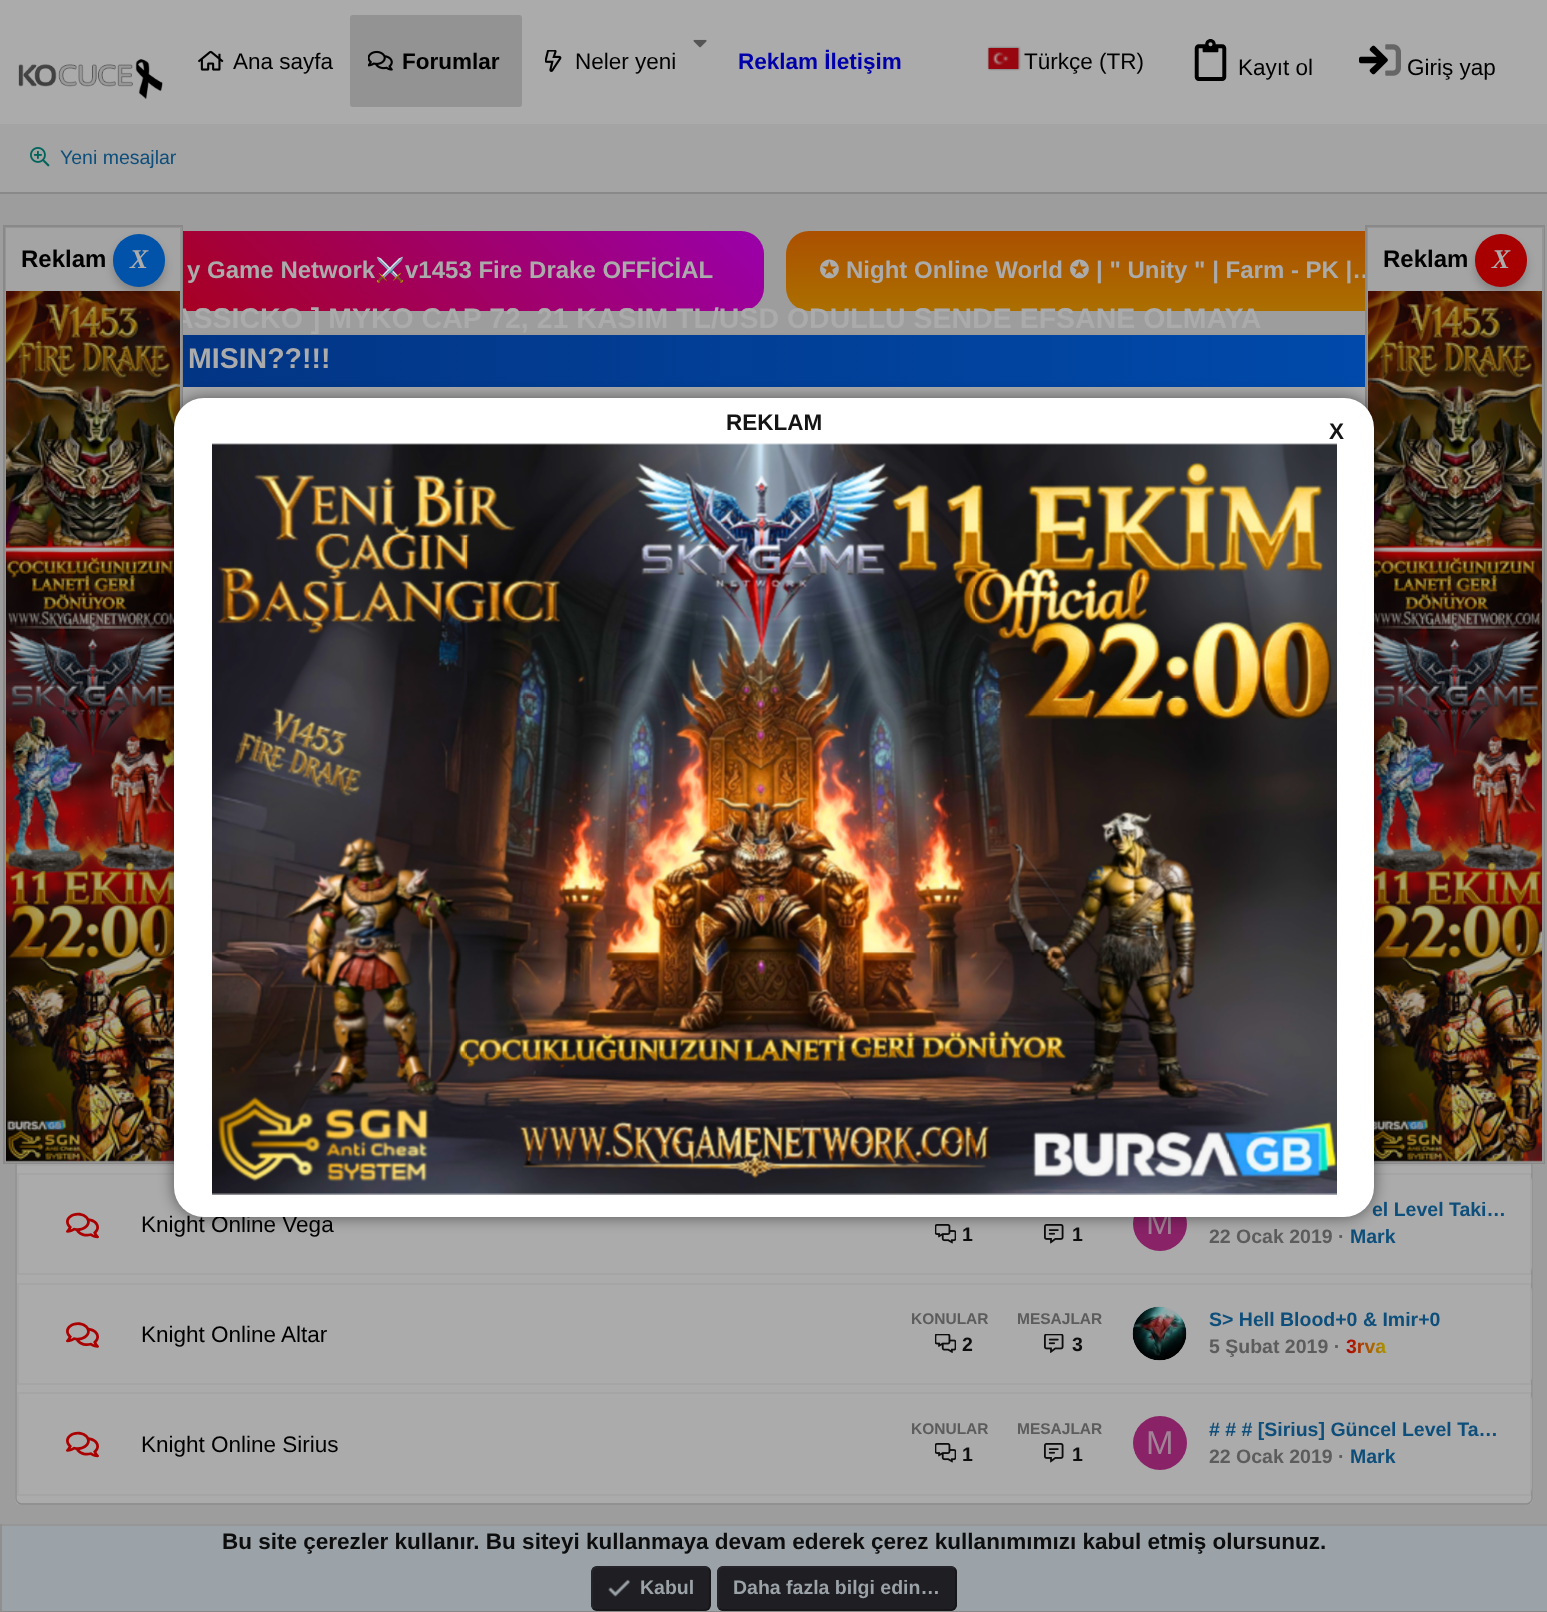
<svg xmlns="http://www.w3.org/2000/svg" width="1547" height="1612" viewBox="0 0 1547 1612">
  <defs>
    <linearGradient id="g1" gradientUnits="userSpaceOnUse" x1="1346" y1="1335" x2="1386" y2="1335"><stop offset="0" stop-color="#ab0000"/><stop offset="1" stop-color="#ab9700"/></linearGradient>
    <linearGradient id="g2" gradientUnits="userSpaceOnUse" x1="182" y1="478" x2="596" y2="64"><stop offset="0" stop-color="#ab0000"/><stop offset="1" stop-color="#9a00ab"/></linearGradient>
    <linearGradient id="g3" gradientUnits="userSpaceOnUse" x1="1160" y1="231" x2="1160" y2="311"><stop offset="0" stop-color="#ab5000"/><stop offset="1" stop-color="#ab6f00"/></linearGradient>
    <linearGradient id="g4" gradientUnits="userSpaceOnUse" x1="17" y1="361" x2="1532" y2="361"><stop offset="0" stop-color="#03327f"/><stop offset="0.9" stop-color="#004aab"/></linearGradient>
  </defs>
  <rect width="100%" height="100%" fill="#9d9d9d"/>
  <path d="M0 0h1547v124H0z" fill="#ababab"/>
  <image x="18" y="59" width="145" height="40" href="img/1.png"/>
  <image x="198" y="50" width="26" height="21" href="img/2.png"/>
  <rect x="350" y="15" width="172" height="92" rx="3" fill="#939393"/>
  <image x="368" y="50" width="25" height="21" href="img/3.png"/>
  <image x="693" y="39" width="14" height="9" href="img/4.png"/>
  <image x="545" y="50" width="17" height="22" href="img/5.png"/>
  <path d="M989 48h30v21H989z" fill="#5a5a5a" filter="blur(1px)"/>
  <path d="M1018 48h1v21H1018z" fill="#939393"/>
  <image x="988" y="48" width="31" height="21" href="img/6.png"/>
  <image x="1194" y="39" width="33" height="42" href="img/7.png"/>
  <image x="1359" y="44" width="42" height="32" href="img/8.png"/>
  <path d="M0 124h1547v68H0z" fill="#a4a4a4"/>
  <path d="M0 192h1547v2H0z" fill="#898989"/>
  <image x="30" y="147" width="20" height="20" href="img/9.png"/>
  <rect x="15" y="231" width="749" height="80" rx="23" fill="url(#g2)"/>
  <rect x="786" y="231" width="747" height="80" rx="23" fill="url(#g3)"/>
  <path d="M183 333h1182v74H183z" fill="#ababab"/>
  <path d="M17.5 335.5C18.5 334.5 19.5 334 21 334H1527C1528.5 334 1529.5 334.5 1530.5 335.5" fill="none" stroke="#969696" stroke-width="1.5"/>
  <path d="M183 335h1182v52H183z" fill="url(#g4)"/>
  <rect x="15" y="852" width="1518" height="653" rx="6" fill="#ababab"/>
  <path d="M1530.5 854.5C1531.5 855.5 1532 856.5 1532 858V1498.5C1532 1500 1531.5 1501 1530.5 1502" fill="none" stroke="#8f8f8f" stroke-width="1.5"/>
  <path d="M1530.5 1502C1529.5 1503 1528.5 1504 1527 1504H21C19.5 1504 18.5 1503 17.5 1502" fill="none" stroke="#898989" stroke-width="1.5"/>
  <path d="M17.5 1502C16.5 1501 16 1500 16 1498.5V858C16 856.5 16.5 855.5 17.5 854.5" fill="none" stroke="#8f8f8f" stroke-width="1.5"/>
  <rect x="17" y="1068" width="1515" height="98" rx="8" fill="#ababab"/>
  <path d="M18 1069h1513v96H18z" fill="none" stroke="#00000008" stroke-width="2"/>
  <rect x="17" y="1173" width="1515" height="102" rx="8" fill="#ababab"/>
  <path d="M18 1174h1513v100H18z" fill="none" stroke="#00000008" stroke-width="2"/>
  <image x="66" y="1212" width="33" height="27" href="img/10.png"/>
  <image x="935" y="1224" width="21" height="20" href="img/11.png"/>
  <image x="1044" y="1224" width="20" height="20" href="img/12.png"/>
  <circle cx="1160" cy="1224" r="27" fill="#892267"/>
  <rect x="17" y="1283" width="1515" height="102" rx="8" fill="#ababab"/>
  <path d="M18 1284h1513v100H18z" fill="none" stroke="#00000008" stroke-width="2"/>
  <image x="66" y="1322" width="33" height="26" href="img/13.png"/>
  <image x="935" y="1334" width="21" height="19" href="img/14.png"/>
  <image x="1044" y="1334" width="20" height="19" href="img/15.png"/>
  <image x="1132" y="1306" width="55" height="55" href="img/16.png"/>
  <rect x="17" y="1392" width="1515" height="104" rx="8" fill="#ababab"/>
  <path d="M18 1393h1513v102H18z" fill="none" stroke="#00000008" stroke-width="2"/>
  <image x="66" y="1431" width="33" height="27" href="img/10.png"/>
  <image x="935" y="1443" width="21" height="20" href="img/11.png"/>
  <image x="1044" y="1443" width="20" height="20" href="img/12.png"/>
  <circle cx="1160" cy="1443" r="27" fill="#892267"/>
  <path d="M2 1526h1545v85H2z" fill="#9ba3a9"/>
  <path d="M0 1524h1547v2H0z" fill="#969696"/>
  <path d="M0 1611h1547v1H0z" fill="#898989"/>
  <path d="M0 1524h2v88H0z" fill="#8f8f8f"/>
  <rect x="591" y="1566" width="120" height="45" rx="6" fill="#1e1e23"/>
  <path d="M708.5 1568.5C711 1570.5 710 1574.5 710 1577.5V1588.5C710 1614 713.5 1610 687 1610H597C595.5 1610 594.5 1609.5 593.5 1608.5" fill="none" stroke="#161619" stroke-width="1.5"/>
  <path d="M593.5 1608.5C591 1606.5 592 1602.5 592 1599.5V1588.5C592 1563 588.5 1567 615 1567H705C706.5 1567 707.5 1567.5 708.5 1568.5" fill="none" stroke="#26262c" stroke-width="1.5"/>
  <image x="608" y="1579" width="22" height="18" href="img/20.png"/>
  <rect x="717" y="1566" width="240" height="45" rx="6" fill="#1e1e23"/>
  <path d="M954.5 1568.5C955.5 1569.5 956 1570.5 956 1572V1605C956 1606.5 955.5 1607.5 954.5 1608.5C953.5 1609.5 952.5 1610 951 1610H723C721.5 1610 720.5 1609.5 719.5 1608.5" fill="none" stroke="#161619" stroke-width="1.5"/>
  <path d="M719.5 1608.5C718.5 1607.5 718 1606.5 718 1605V1572C718 1570.5 718.5 1569.5 719.5 1568.5C720.5 1567.5 721.5 1567 723 1567H951C952.5 1567 953.5 1567.5 954.5 1568.5" fill="none" stroke="#26262c" stroke-width="1.5"/>
  <text x="233" y="69" font-family="Liberation Sans" font-size="22.5" fill="#000">Ana sayfa</text>
  <text x="402" y="69" font-family="Liberation Sans" font-size="22.5" font-weight="bold" fill="#000">Forumlar</text>
  <text x="575" y="69" font-family="Liberation Sans" font-size="22.5" fill="#000">Neler yeni</text>
  <text x="738" y="69" font-family="Liberation Sans" font-size="22.5" font-weight="bold" fill="#0000ab">Reklam İletişim</text>
  <g font-family="Liberation Sans" font-size="22.5" fill="#000">
    <text x="1024" y="69">Türkçe (TR)</text>
    <text x="1238" y="75">Kayıt ol</text>
    <text x="1407" y="75">Giriş yap</text>
  </g>
  <text x="60" y="164" font-family="Liberation Sans" font-size="19.5" fill="#0d4e7b">Yeni mesajlar</text>
  <text x="187" y="278" font-family="Liberation Sans" font-size="24" font-weight="bold" fill="#ababab">y Game Network</text>
  <text x="375" y="278" font-family="Noto Color Emoji" font-size="24" font-weight="bold" fill="#ababab">⚔️</text>
  <text x="405" y="278" font-family="Liberation Sans" font-size="24" font-weight="bold" fill="#ababab">v1453 Fire Drake OFFİCİAL</text>
  <text x="819" y="278" font-family="DejaVu Sans" font-size="24" font-weight="bold" fill="#ababab">✪</text>
  <text x="846" y="278" font-family="Liberation Sans" font-size="24" font-weight="bold" fill="#ababab">Night Online World</text>
  <text x="1069" y="278" font-family="DejaVu Sans" font-size="24" font-weight="bold" fill="#ababab">✪</text>
  <text x="1096" y="278" font-family="Liberation Sans" font-size="24" font-weight="bold" fill="#ababab">| " Unity " | Farm - PK |…</text>
  <g font-family="Liberation Sans" font-size="28.5" font-weight="bold" fill="#ababab">
    <text x="173" y="328">ASSICKO ] MYKO CAP 72, 21 KASIM TL/USD ODULLU SENDE EFSANE OLMAYA</text>
    <text x="188" y="368">MISIN??!!!</text>
  </g>
  <text x="141" y="1232" font-family="Liberation Sans" font-size="22.5" fill="#000">Knight Online Vega</text>
  <g font-family="Liberation Sans" font-size="19.5" font-weight="bold" fill="#0d0d0d">
    <text x="962" y="1241">1</text>
    <text x="1072" y="1241">1</text>
  </g>
  <text x="1372" y="1216" font-family="Liberation Sans" font-size="19.5" font-weight="bold" fill="#0d4e7b">el Level Taki…</text>
  <text x="1146" y="1234" font-family="Liberation Sans" font-size="33" fill="#a18296">M</text>
  <text x="1209" y="1243" font-family="Liberation Sans" font-size="19.5" font-weight="bold" fill="#5c5c5c">22 Ocak 2019 ·</text>
  <text x="1350" y="1243" font-family="Liberation Sans" font-size="19.5" font-weight="bold" fill="#0d4e7b">Mark</text>
  <text x="141" y="1342" font-family="Liberation Sans" font-size="22.5" fill="#000">Knight Online Altar</text>
  <text x="911" y="1324" font-family="Liberation Sans" font-size="15.5" font-weight="bold" fill="#5c5c5c">KONULAR</text>
  <text x="962" y="1351" font-family="Liberation Sans" font-size="19.5" font-weight="bold" fill="#0d0d0d">2</text>
  <text x="1017" y="1324" font-family="Liberation Sans" font-size="15.5" font-weight="bold" fill="#5c5c5c">MESAJLAR</text>
  <text x="1072" y="1351" font-family="Liberation Sans" font-size="19.5" font-weight="bold" fill="#0d0d0d">3</text>
  <text x="1209" y="1326" font-family="Liberation Sans" font-size="19.5" font-weight="bold" fill="#0d4e7b">S&gt; Hell Blood+0 &amp; Imir+0</text>
  <text x="1209" y="1353" font-family="Liberation Sans" font-size="19.5" font-weight="bold" fill="#5c5c5c">5 Şubat 2019 ·</text>
  <text x="1346" y="1353" font-family="Liberation Sans" font-size="19.5" font-weight="bold" fill="url(#g1)">3rva</text>
  <text x="141" y="1452" font-family="Liberation Sans" font-size="22.5" fill="#000">Knight Online Sirius</text>
  <text x="911" y="1434" font-family="Liberation Sans" font-size="15.5" font-weight="bold" fill="#5c5c5c">KONULAR</text>
  <text x="962" y="1461" font-family="Liberation Sans" font-size="19.5" font-weight="bold" fill="#0d0d0d">1</text>
  <text x="1017" y="1434" font-family="Liberation Sans" font-size="15.5" font-weight="bold" fill="#5c5c5c">MESAJLAR</text>
  <text x="1072" y="1461" font-family="Liberation Sans" font-size="19.5" font-weight="bold" fill="#0d0d0d">1</text>
  <text x="1146" y="1454" font-family="Liberation Sans" font-size="33" fill="#a18296">M</text>
  <text x="1209" y="1436" font-family="Liberation Sans" font-size="19.5" font-weight="bold" fill="#0d4e7b"># # # [Sirius] Güncel Level Ta…</text>
  <text x="1209" y="1463" font-family="Liberation Sans" font-size="19.5" font-weight="bold" fill="#5c5c5c">22 Ocak 2019 ·</text>
  <text x="1350" y="1463" font-family="Liberation Sans" font-size="19.5" font-weight="bold" fill="#0d4e7b">Mark</text>
  <path d="M4 226h178v937H4z" fill="none" stroke="#898989" stroke-width="2"/>
  <path d="M6 228h175v934H6z" fill="none" stroke="#959595" stroke-width="2"/>
  <path d="M6 228h174v63H6z" fill="#a4a4a4"/>
  <text x="21" y="267" font-family="Liberation Sans" font-size="24" font-weight="bold" fill="#000">Reklam</text>
  <image x="6" y="291" width="174" height="871" href="img/17.png"/>
  <rect x="113" y="240" width="52" height="53" rx="26" fill="#00000033" filter="blur(4.5px)"/>
  <rect x="113" y="234" width="52" height="53" rx="26" fill="#0053a8"/>
  <text x="130" y="268" font-family="Liberation Serif" font-size="27" font-weight="bold" font-style="italic" fill="#ababab">X</text>
  <path d="M1366 226h178v937H1366z" fill="none" stroke="#898989" stroke-width="2"/>
  <path d="M1368 228h175v934H1368z" fill="none" stroke="#959595" stroke-width="2"/>
  <path d="M1368 228h174v63H1368z" fill="#a4a4a4"/>
  <text x="1383" y="267" font-family="Liberation Sans" font-size="24" font-weight="bold" fill="#000">Reklam</text>
  <image x="1368" y="291" width="174" height="871" href="img/18.png"/>
  <rect x="1475" y="240" width="52" height="53" rx="26" fill="#00000033" filter="blur(4.5px)"/>
  <rect x="1475" y="234" width="52" height="53" rx="26" fill="#a80000"/>
  <text x="1492" y="268" font-family="Liberation Serif" font-size="27" font-weight="bold" font-style="italic" fill="#ababab">X</text>
  <rect x="174" y="398" width="1200" height="819" rx="30" fill="#00000080" filter="blur(7.5px)"/>
  <rect x="174" y="398" width="1200" height="819" rx="30" fill="#fff"/>
  <g font-family="Liberation Sans" font-size="22.5" font-weight="bold" fill="#141414">
    <text x="726" y="430">REKLAM</text>
    <text x="1329" y="439">X</text>
  </g>
  <image x="212" y="443" width="1125" height="752" href="img/19.png"/>
  <text x="222" y="1549" font-family="Liberation Sans" font-size="22.5" font-weight="bold" fill="#0d0d0d">Bu site çerezler kullanır. Bu siteyi kullanmaya devam ederek çerez kullanımımızı kabul etmiş olursunuz.</text>
  <g font-family="Liberation Sans" font-size="19.5" font-weight="bold" fill="#9ba3a9">
    <text x="640" y="1594">Kabul</text>
    <text x="733" y="1594">Daha fazla bilgi edin…</text>
  </g>
</svg>
